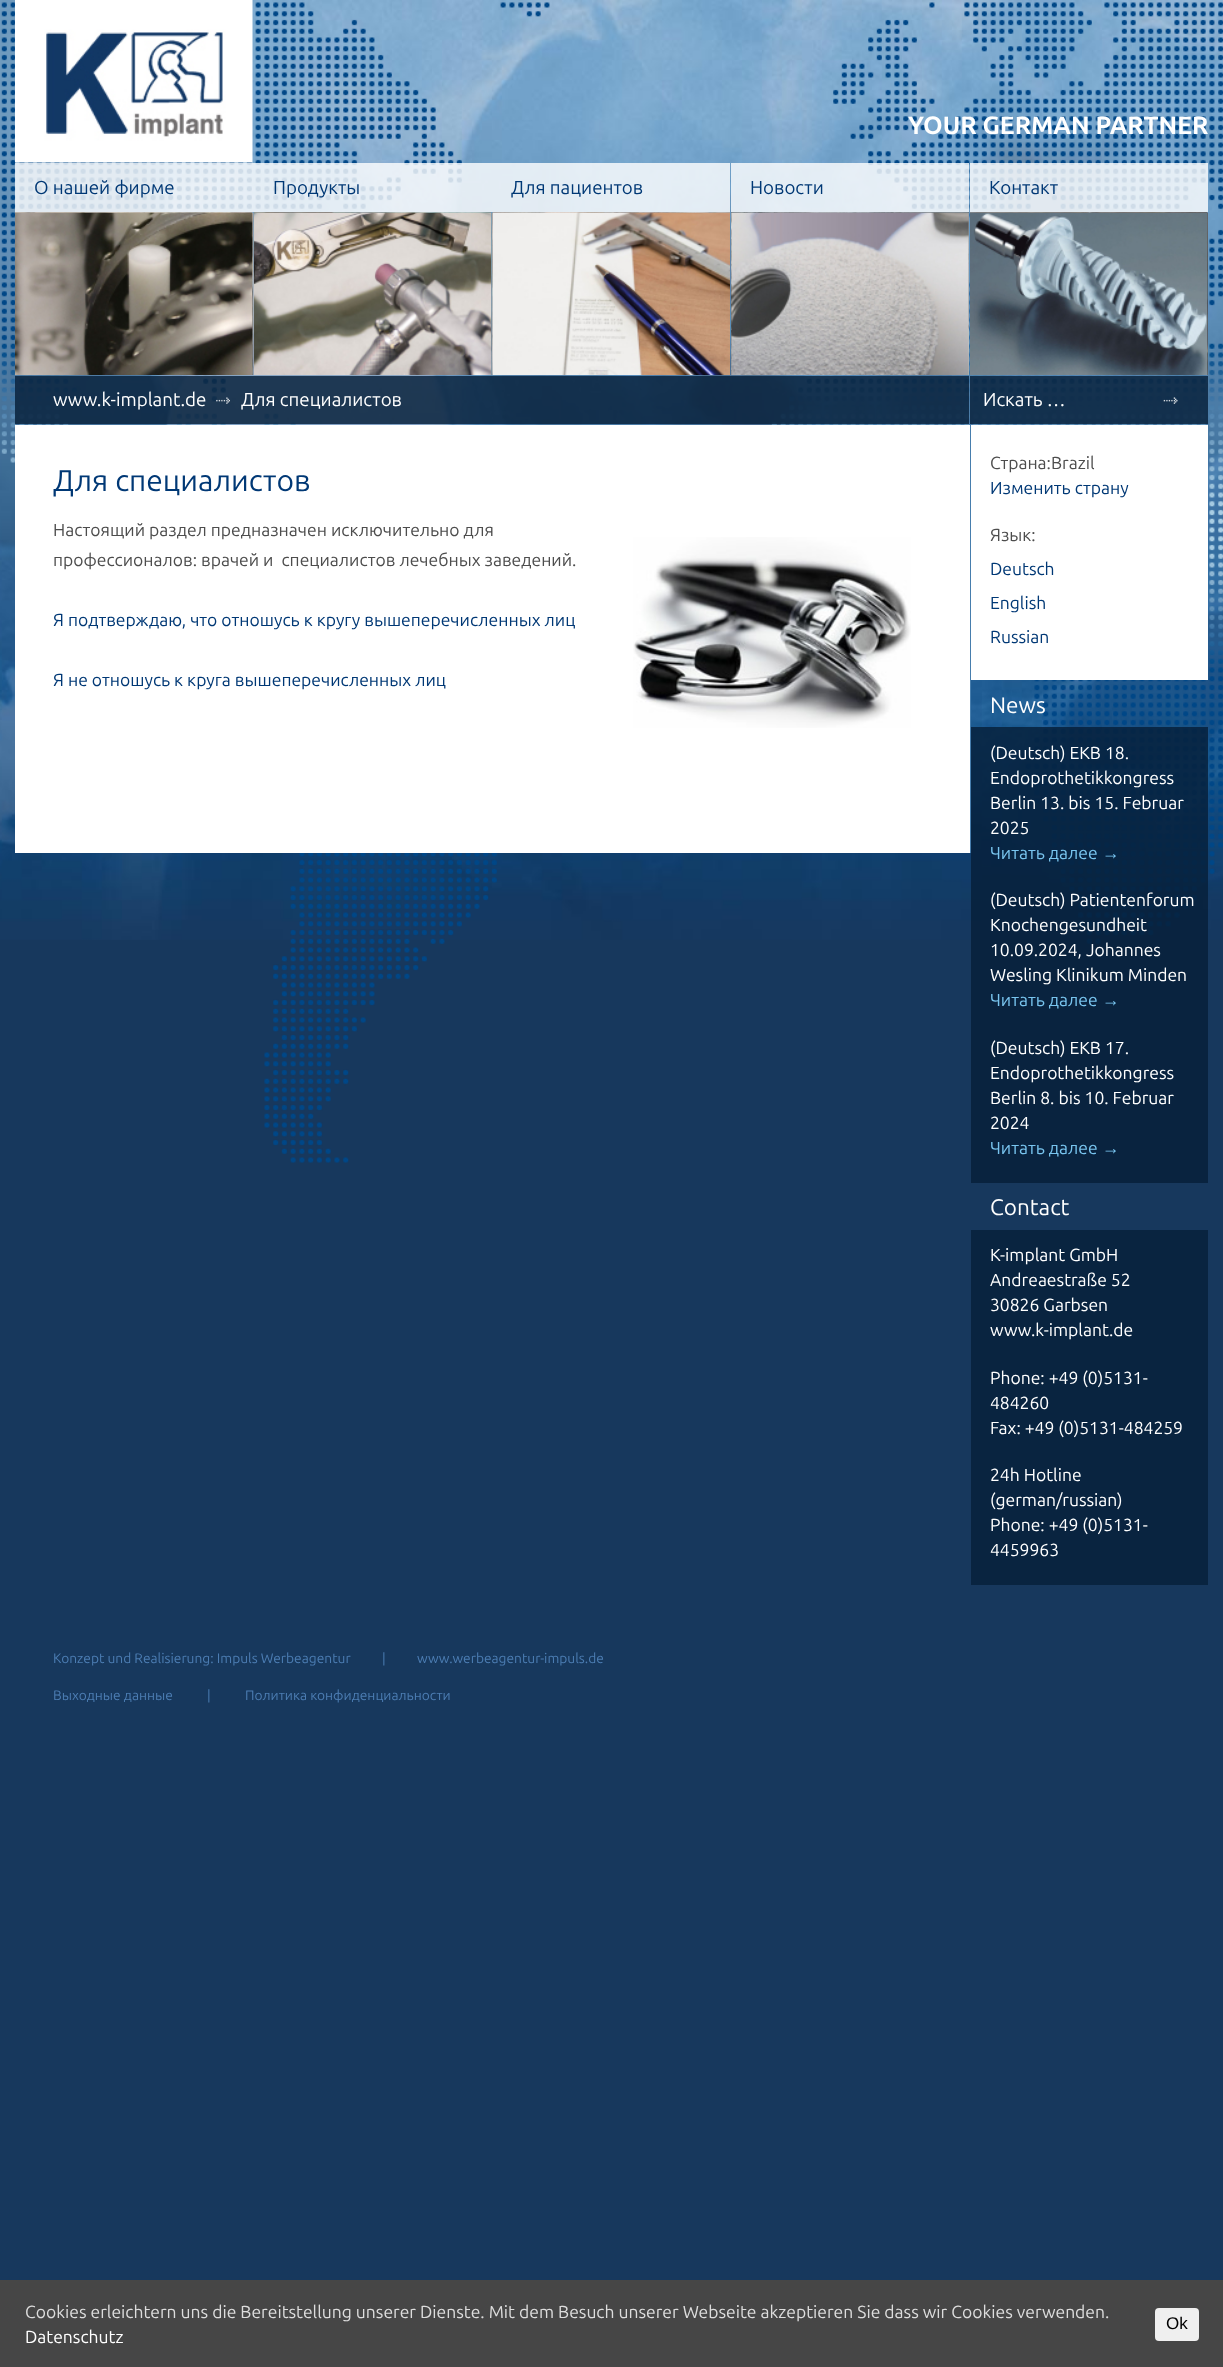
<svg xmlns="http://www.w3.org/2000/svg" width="1223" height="2367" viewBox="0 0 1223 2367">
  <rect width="100%" height="100%" fill="#17385d"/>
  <image x="0" y="0" width="1223" height="940" href="img/1.png"/>
  <image x="1" y="2" width="1222" height="1161" href="img/2.png"/>
  <image x="15" y="0" width="238" height="163" href="img/3.png"/>
  <path d="M15 163h238v49H15z" fill="#ffffffcf"/>
  <path d="M253 163h239v49H253z" fill="#ffffffcf"/>
  <path d="M492 163h238v49H492z" fill="#ffffffcf"/>
  <path d="M731 163h238v49H731z" fill="#ffffffcf"/>
  <path d="M970 163h238v49H970z" fill="#ffffffcf"/>
  <image x="15" y="212" width="238" height="163" href="img/4.png"/>
  <image x="15" y="212" width="238" height="163" href="img/5.png"/>
  <image x="15" y="212" width="238" height="163" href="img/6.png"/>
  <image x="15" y="212" width="238" height="163" href="img/7.png"/>
  <image x="15" y="212" width="238" height="163" href="img/8.png"/>
  <image x="15" y="212" width="238" height="163" href="img/9.png"/>
  <image x="15" y="212" width="238" height="163" href="img/10.png"/>
  <image x="15" y="212" width="238" height="163" href="img/11.png"/>
  <image x="15" y="212" width="238" height="163" href="img/12.png"/>
  <image x="15" y="212" width="238" height="163" href="img/13.png"/>
  <image x="253" y="212" width="239" height="163" href="img/14.png"/>
  <image x="253" y="212" width="239" height="163" href="img/15.png"/>
  <image x="253" y="212" width="239" height="163" href="img/16.png"/>
  <image x="253" y="212" width="239" height="163" href="img/17.png"/>
  <image x="253" y="212" width="239" height="163" href="img/18.png"/>
  <image x="253" y="212" width="239" height="163" href="img/19.png"/>
  <image x="253" y="212" width="239" height="163" href="img/20.png"/>
  <image x="253" y="212" width="239" height="163" href="img/21.png"/>
  <image x="253" y="212" width="239" height="163" href="img/22.png"/>
  <image x="253" y="212" width="239" height="163" href="img/23.png"/>
  <image x="492" y="212" width="238" height="163" href="img/24.png"/>
  <image x="492" y="212" width="238" height="163" href="img/25.png"/>
  <image x="492" y="212" width="238" height="163" href="img/26.png"/>
  <image x="492" y="212" width="238" height="163" href="img/27.png"/>
  <image x="492" y="212" width="238" height="163" href="img/28.png"/>
  <image x="492" y="212" width="238" height="163" href="img/29.png"/>
  <image x="492" y="212" width="238" height="163" href="img/30.png"/>
  <image x="492" y="212" width="238" height="163" href="img/31.png"/>
  <image x="492" y="212" width="238" height="163" href="img/32.png"/>
  <image x="492" y="212" width="238" height="163" href="img/33.png"/>
  <image x="731" y="212" width="238" height="163" href="img/34.png"/>
  <image x="731" y="212" width="238" height="163" href="img/35.png"/>
  <image x="731" y="212" width="238" height="163" href="img/36.png"/>
  <image x="731" y="212" width="238" height="163" href="img/37.png"/>
  <image x="731" y="212" width="238" height="163" href="img/38.png"/>
  <image x="731" y="212" width="238" height="163" href="img/39.png"/>
  <image x="731" y="212" width="238" height="163" href="img/40.png"/>
  <image x="731" y="212" width="238" height="163" href="img/41.png"/>
  <image x="731" y="212" width="238" height="163" href="img/42.png"/>
  <image x="731" y="212" width="238" height="163" href="img/43.png"/>
  <image x="970" y="212" width="238" height="163" href="img/44.png"/>
  <image x="970" y="212" width="238" height="163" href="img/45.png"/>
  <image x="970" y="212" width="238" height="163" href="img/46.png"/>
  <image x="970" y="212" width="238" height="163" href="img/47.png"/>
  <image x="970" y="212" width="238" height="163" href="img/48.png"/>
  <image x="970" y="212" width="238" height="163" href="img/49.png"/>
  <image x="970" y="212" width="238" height="163" href="img/50.png"/>
  <image x="970" y="212" width="238" height="163" href="img/51.png"/>
  <image x="970" y="212" width="238" height="163" href="img/52.png"/>
  <image x="970" y="212" width="238" height="163" href="img/53.png"/>
  <path d="M15 376h954v48H15z" fill="#061f39cf"/>
  <image x="216" y="397" width="14" height="7" href="img/54.png"/>
  <path d="M970 376h238v48H970z" fill="#061f39cf"/>
  <image x="1163" y="397" width="15" height="7" href="img/55.png"/>
  <path d="M15 425h955v428H15z" fill="#fff"/>
  <path d="M970 425h1v428H970z" fill="#467dad"/>
  <image x="633" y="537" width="278" height="191" href="img/56.png"/>
  <path d="M971 425h237v255H971z" fill="#fff"/>
  <path d="M971 727h237v456H971z" fill="#061f39cf"/>
  <path d="M971 1230h237v355H971z" fill="#092440"/>
  <path d="M0 2280h1223v87H0z" fill="#464646"/>
  <rect x="1155" y="2308" width="44" height="33" rx="4" fill="#efefef"/>
  <text x="908" y="134" font-family="Ubuntu" font-size="25" font-weight="bold" fill="#fff">YOUR GERMAN PARTNER</text>
  <g font-family="Ubuntu" font-size="18.75" fill="#003875">
    <text x="34" y="194">О нашей фирме</text>
    <text x="273" y="194">Продукты</text>
    <text x="511" y="194">Для пациентов</text>
    <text x="750" y="194">Новости</text>
    <text x="989" y="194">Контакт</text>
  </g>
  <g font-family="Ubuntu" font-size="18.75" fill="#fff">
    <text x="53" y="406">www.k-implant.de</text>
    <text x="241" y="406">Для специалистов</text>
    <text x="983" y="406">Искать …</text>
  </g>
  <text x="53" y="491" font-family="Ubuntu" font-size="30" fill="#003875">Для специалистов</text>
  <g font-family="Ubuntu" font-size="17.5" fill="#4d4d4d">
    <text x="53" y="536">Настоящий раздел предназначен исключительно для</text>
    <text x="53" y="566" xml:space="preserve">профессионалов: врачей и  специалистов лечебных заведений.</text>
  </g>
  <g font-family="Ubuntu" font-size="17.5" fill="#003875">
    <text x="53" y="626">Я подтверждаю, что отношусь к кругу вышеперечисленных лиц</text>
    <text x="53" y="686">Я не отношусь к круга вышеперечисленных лиц</text>
  </g>
  <text x="990" y="469" font-family="Ubuntu" font-size="17.5" fill="#4d4d4d">Страна:Brazil</text>
  <text x="990" y="494" font-family="Ubuntu" font-size="17.5" fill="#003875">Изменить страну</text>
  <text x="990" y="541" font-family="Ubuntu" font-size="17.5" fill="#4d4d4d">Язык:</text>
  <g font-family="Ubuntu" font-size="17.5" fill="#003875">
    <text x="990" y="575">Deutsch</text>
    <text x="990" y="609">English</text>
    <text x="990" y="643">Russian</text>
  </g>
  <text x="990" y="713" font-family="Ubuntu" font-size="22.5" fill="#fff">News</text>
  <g font-family="Ubuntu" font-size="17.5" fill="#fff">
    <text x="990" y="759">(Deutsch) EKB 18.</text>
    <text x="990" y="784">Endoprothetikkongress</text>
    <text x="990" y="809">Berlin 13. bis 15. Februar</text>
    <text x="990" y="834">2025</text>
  </g>
  <text x="990" y="859" font-family="Ubuntu" font-size="17.5" fill="#79c5ef">Читать далее</text>
  <text x="1102" y="859" font-family="Liberation Sans" font-size="17.5" fill="#79c5ef">→</text>
  <g font-family="Ubuntu" font-size="17.5" fill="#fff">
    <text x="990" y="906">(Deutsch) Patientenforum</text>
    <text x="990" y="931">Knochengesundheit</text>
    <text x="990" y="956">10.09.2024, Johannes</text>
    <text x="990" y="981">Wesling Klinikum Minden</text>
  </g>
  <text x="990" y="1006" font-family="Ubuntu" font-size="17.5" fill="#79c5ef">Читать далее</text>
  <text x="1102" y="1006" font-family="Liberation Sans" font-size="17.5" fill="#79c5ef">→</text>
  <g font-family="Ubuntu" font-size="17.5" fill="#fff">
    <text x="990" y="1054">(Deutsch) EKB 17.</text>
    <text x="990" y="1079">Endoprothetikkongress</text>
    <text x="990" y="1104">Berlin 8. bis 10. Februar</text>
    <text x="990" y="1129">2024</text>
  </g>
  <text x="990" y="1154" font-family="Ubuntu" font-size="17.5" fill="#79c5ef">Читать далее</text>
  <text x="1102" y="1154" font-family="Liberation Sans" font-size="17.5" fill="#79c5ef">→</text>
  <text x="990" y="1215" font-family="Ubuntu" font-size="22.5" fill="#fff">Contact</text>
  <g font-family="Ubuntu" font-size="17.5" fill="#fff">
    <text x="990" y="1261">K-implant GmbH</text>
    <text x="990" y="1286">Andreaestraße 52</text>
    <text x="990" y="1311">30826 Garbsen</text>
    <text x="990" y="1336">www.k-implant.de</text>
    <text x="990" y="1384">Phone: +49 (0)5131-</text>
    <text x="990" y="1409">484260</text>
    <text x="990" y="1434">Fax: +49 (0)5131-484259</text>
    <text x="990" y="1481">24h Hotline</text>
    <text x="990" y="1506">(german/russian)</text>
    <text x="990" y="1531">Phone: +49 (0)5131-</text>
    <text x="990" y="1556">4459963</text>
  </g>
  <g font-family="Ubuntu" font-size="13.75" fill="#4c7db3">
    <text x="53" y="1663" xml:space="preserve">Konzept und Realisierung: Impuls Werbeagentur          |</text>
    <text x="417" y="1663">www.werbeagentur-impuls.de</text>
    <text x="53" y="1700">Выходные данные</text>
    <text x="207" y="1700">|</text>
    <text x="245" y="1700">Политика конфиденциальности</text>
  </g>
  <text x="25" y="2318" font-family="Ubuntu" font-size="17.5" fill="#ddd">Cookies erleichtern uns die Bereitstellung unserer Dienste. Mit dem Besuch unserer Webseite akzeptieren Sie dass wir Cookies verwenden.</text>
  <text x="25" y="2343" font-family="Ubuntu" font-size="17.5" fill="#fff">Datenschutz</text>
  <text x="1166" y="2329" font-family="Liberation Sans" font-size="17" fill="#000">Ok</text>
</svg>
